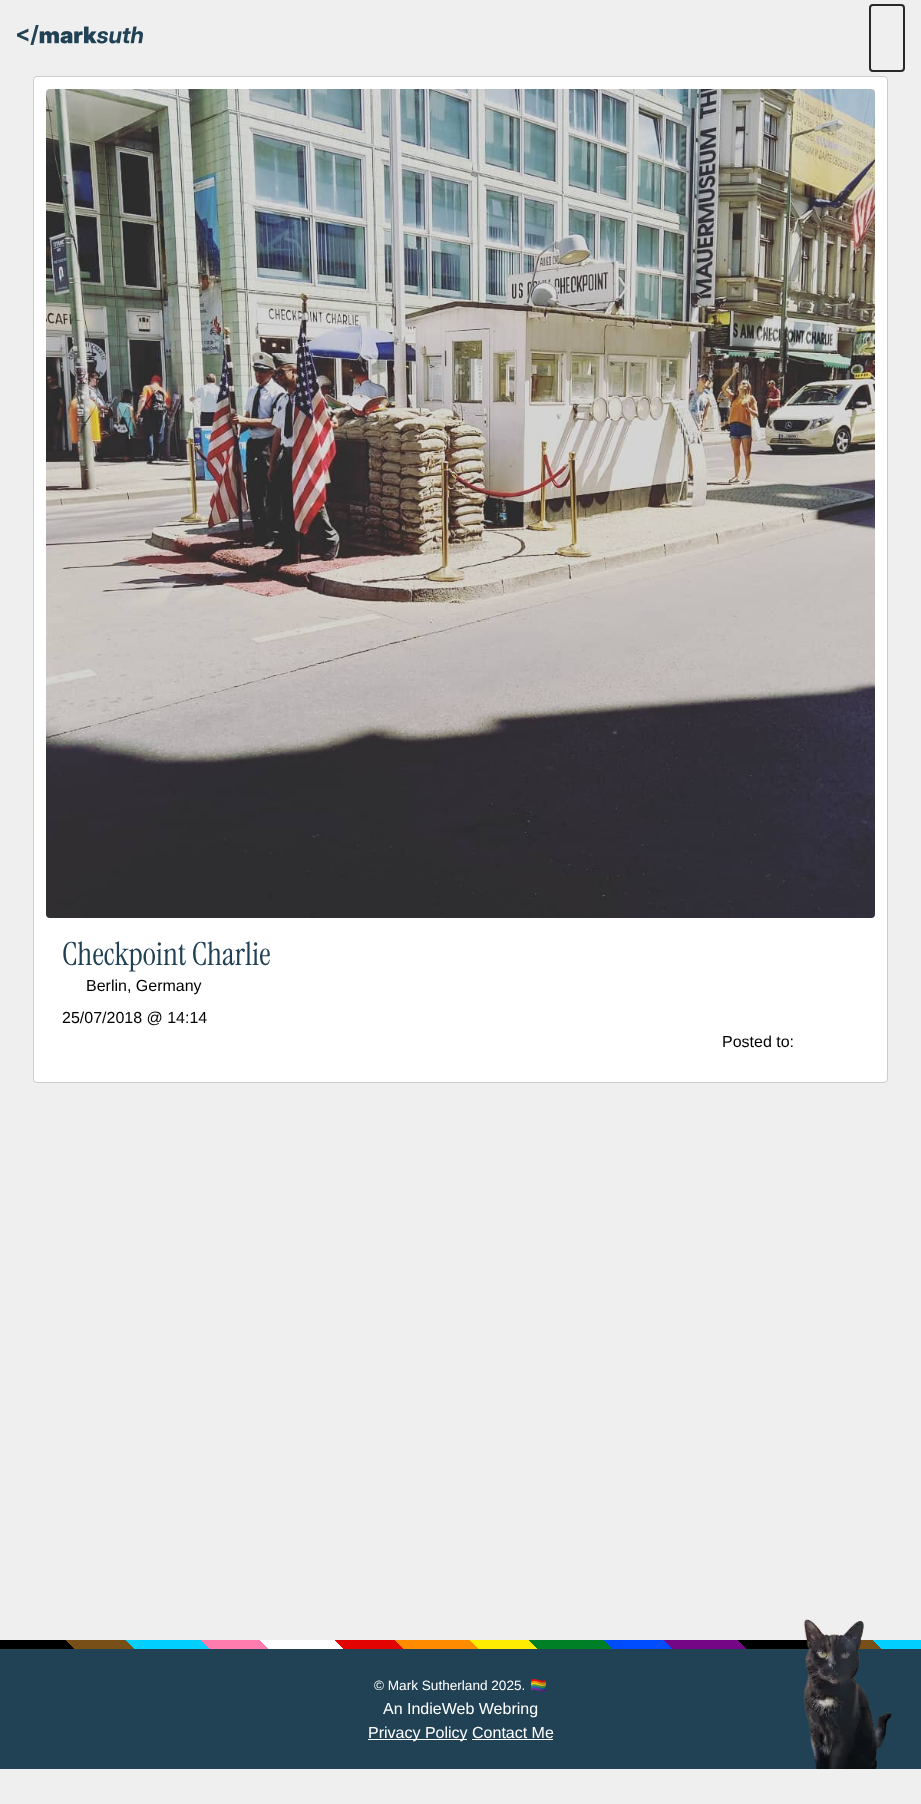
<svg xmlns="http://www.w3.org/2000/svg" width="921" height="1804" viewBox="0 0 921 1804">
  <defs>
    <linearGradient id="g1" gradientUnits="userSpaceOnUse" x1="228" y1="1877" x2="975" y2="1130"><stop offset="0" stop-color="#000"/><stop offset="0.05" stop-color="#000"/><stop offset="0.05" stop-color="#784f17"/><stop offset="0.09" stop-color="#784f17"/><stop offset="0.09" stop-color="#00cfff"/><stop offset="0.14" stop-color="#00cfff"/><stop offset="0.14" stop-color="#ff7cae"/><stop offset="0.18" stop-color="#ff7cae"/><stop offset="0.18" stop-color="#fff"/><stop offset="0.23" stop-color="#fff"/><stop offset="0.23" stop-color="#e40303"/><stop offset="0.27" stop-color="#e40303"/><stop offset="0.27" stop-color="#ff8c00"/><stop offset="0.32" stop-color="#ff8c00"/><stop offset="0.32" stop-color="#ffed00"/><stop offset="0.36" stop-color="#ffed00"/><stop offset="0.36" stop-color="#008026"/><stop offset="0.41" stop-color="#008026"/><stop offset="0.41" stop-color="#004dff"/><stop offset="0.45" stop-color="#004dff"/><stop offset="0.45" stop-color="#750787"/><stop offset="0.5" stop-color="#750787"/><stop offset="0.5" stop-color="#000"/><stop offset="0.55" stop-color="#000"/><stop offset="0.55" stop-color="#784f17"/><stop offset="0.59" stop-color="#784f17"/><stop offset="0.59" stop-color="#00cfff"/><stop offset="0.64" stop-color="#00cfff"/><stop offset="0.64" stop-color="#ff7cae"/><stop offset="0.68" stop-color="#ff7cae"/><stop offset="0.68" stop-color="#fff"/><stop offset="0.73" stop-color="#fff"/><stop offset="0.73" stop-color="#e40303"/><stop offset="0.77" stop-color="#e40303"/><stop offset="0.77" stop-color="#ff8c00"/><stop offset="0.82" stop-color="#ff8c00"/><stop offset="0.82" stop-color="#ffed00"/><stop offset="0.86" stop-color="#ffed00"/><stop offset="0.86" stop-color="#008026"/><stop offset="0.91" stop-color="#008026"/><stop offset="0.91" stop-color="#004dff"/><stop offset="0.95" stop-color="#004dff"/><stop offset="0.95" stop-color="#750787"/><stop offset="1" stop-color="#750787"/></linearGradient>
  </defs>
  <rect width="100%" height="100%" fill="#efefef"/>
  <image x="17" y="25" width="126" height="20" href="img/1.png"/>
  <rect x="870" y="5" width="34" height="66" rx="3" fill="none" stroke="#282828" stroke-width="2"/>
  <rect x="33.5" y="76.5" width="854" height="1006" rx="3.5" fill="#fff" stroke="#ccc"/>
  <image x="46" y="89" width="829" height="829" href="img/2.png"/>
  <path d="M0 1640h921v9H0z" fill="url(#g1)"/>
  <path d="M0 1649h921v120H0z" fill="#214154"/>
  <image x="803" y="1619" width="89" height="150" href="img/3.png"/>
  <path d="M368 1739h99v1H368z" fill="#fff"/>
  <path d="M472 1739h81v1H472z" fill="#fff"/>
  <text x="62" y="965" font-family="Instrument Serif" font-size="32" fill="#214154">Checkpoint Charlie</text>
  <g font-family="Liberation Sans" font-size="16" fill="#000">
    <text x="86" y="991">Berlin, Germany</text>
    <text x="62" y="1023">25/07/2018 @ 14:14</text>
    <text x="722" y="1047">Posted to:</text>
  </g>
  <text x="374" y="1690" font-family="Liberation Sans" font-size="13.6" fill="#fff">© Mark Sutherland 2025.</text>
  <text x="530" y="1690" font-family="Noto Color Emoji" font-size="13.6" fill="#fff">🏳️‍🌈</text>
  <g font-family="Liberation Sans" font-size="16" fill="#fff">
    <text x="383" y="1714">An IndieWeb Webring</text>
    <text x="368" y="1738">Privacy Policy Contact Me</text>
  </g>
</svg>
